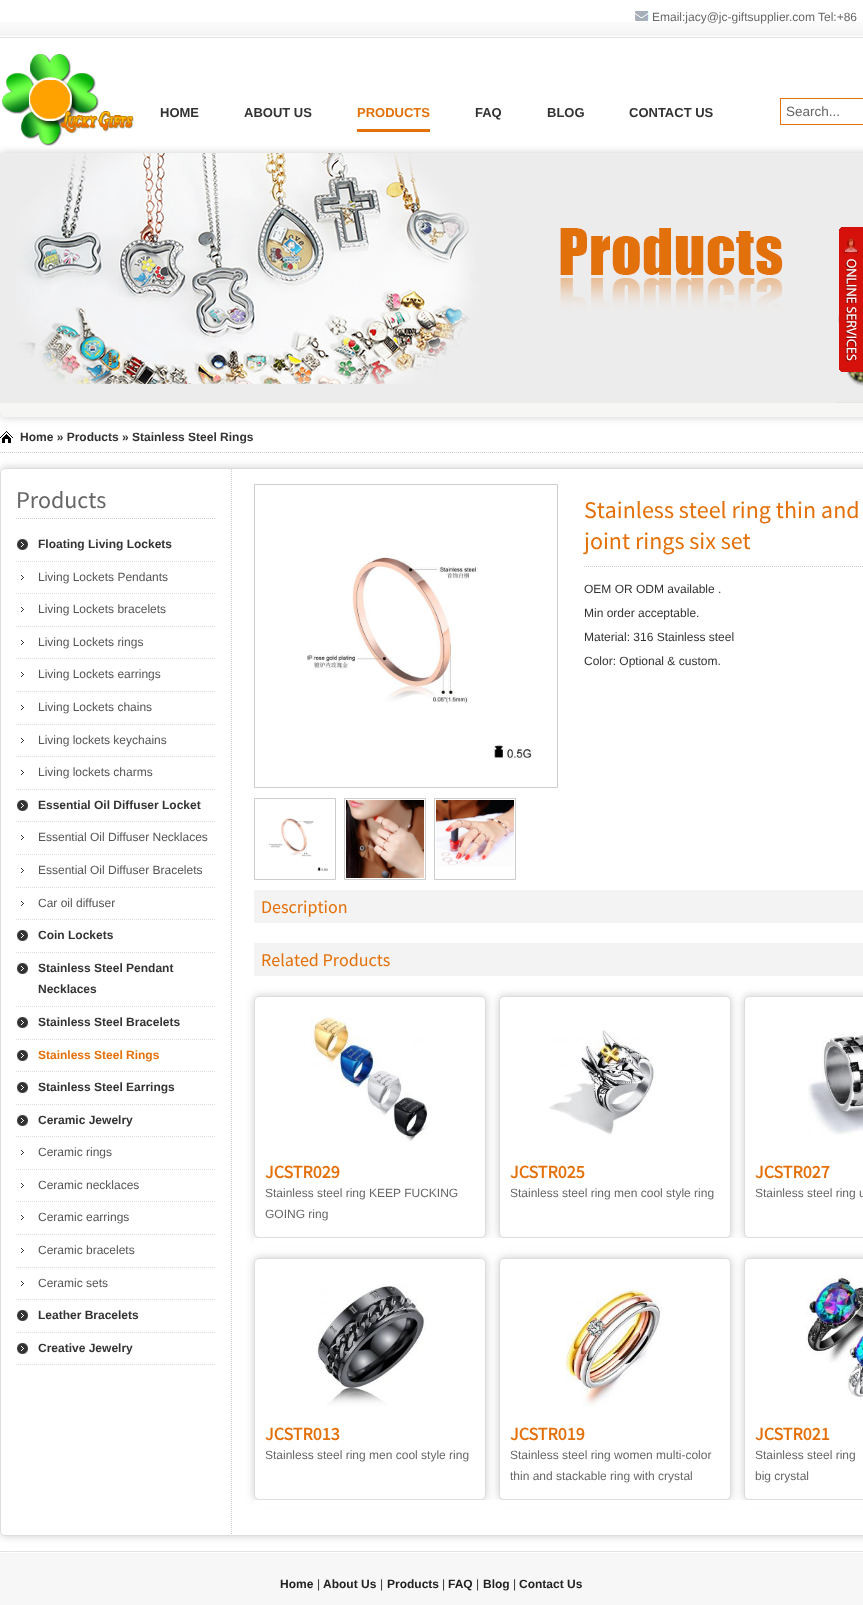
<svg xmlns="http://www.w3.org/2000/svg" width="863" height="1605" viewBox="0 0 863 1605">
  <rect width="100%" height="100%" fill="#fff"/>
  <image x="0" y="22" width="863" height="14" href="img/1.png"/>
  <path d="M0 37h863v1H0z" fill="#e3e3e3"/>
  <image x="635" y="11" width="14" height="10" href="img/2.png"/>
  <rect y="153" width="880" height="264" rx="5" fill="#ccc" filter="blur(4px)"/>
  <image x="2" y="54" width="132" height="92" href="img/3.png"/>
  <path d="M357 129h73v3H357z" fill="#e4700b"/>
  <path d="M780 98h83v1H780z" fill="#e4700a"/>
  <path d="M780 124h83v1H780z" fill="#e4700a"/>
  <path d="M780 98h1v27H780z" fill="#e4700a"/>
  <rect y="153" width="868" height="264" rx="5" fill="#f6f6f5"/>
  <image x="0" y="153" width="863" height="250" href="img/4.png"/>
  <image x="839" y="227" width="24" height="145" href="img/5.png"/>
  <path d="M0 452.5H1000" fill="none" stroke="#ccc" stroke-dasharray="1 1"/>
  <image x="0" y="431" width="13" height="12" href="img/6.png"/>
  <rect y="468" width="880" height="1068" rx="5" fill="#ccc" filter="blur(4px)"/>
  <rect y="468" width="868" height="1068" rx="5" fill="#fff"/>
  <image x="231" y="469" width="1" height="1066" href="img/7.png"/>
  <rect x="0.5" y="468.5" width="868" height="1067" rx="4.5" fill="none" stroke="#ddd"/>
  <path d="M16 518.5H216" fill="none" stroke="#ccc" stroke-dasharray="1 1"/>
  <image x="17" y="539" width="11" height="11" href="img/8.png"/>
  <path d="M16 561.5H216" fill="none" stroke="#ddd" stroke-dasharray="1 1"/>
  <image x="21" y="575" width="3" height="5" href="img/9.png"/>
  <path d="M16 593.5H216" fill="none" stroke="#ddd" stroke-dasharray="1 1"/>
  <image x="21" y="607" width="3" height="5" href="img/9.png"/>
  <path d="M16 626.5H216" fill="none" stroke="#ddd" stroke-dasharray="1 1"/>
  <image x="21" y="640" width="3" height="5" href="img/9.png"/>
  <path d="M16 658.5H216" fill="none" stroke="#ddd" stroke-dasharray="1 1"/>
  <image x="21" y="672" width="3" height="5" href="img/9.png"/>
  <path d="M16 691.5H216" fill="none" stroke="#ddd" stroke-dasharray="1 1"/>
  <image x="21" y="705" width="3" height="5" href="img/9.png"/>
  <path d="M16 724.5H216" fill="none" stroke="#ddd" stroke-dasharray="1 1"/>
  <image x="21" y="738" width="3" height="5" href="img/9.png"/>
  <path d="M16 756.5H216" fill="none" stroke="#ddd" stroke-dasharray="1 1"/>
  <image x="21" y="770" width="3" height="5" href="img/9.png"/>
  <path d="M16 789.5H216" fill="none" stroke="#ddd" stroke-dasharray="1 1"/>
  <image x="17" y="800" width="11" height="11" href="img/8.png"/>
  <path d="M16 821.5H216" fill="none" stroke="#ddd" stroke-dasharray="1 1"/>
  <image x="21" y="835" width="3" height="5" href="img/9.png"/>
  <path d="M16 854.5H216" fill="none" stroke="#ddd" stroke-dasharray="1 1"/>
  <image x="21" y="868" width="3" height="5" href="img/9.png"/>
  <path d="M16 887.5H216" fill="none" stroke="#ddd" stroke-dasharray="1 1"/>
  <image x="21" y="901" width="3" height="5" href="img/9.png"/>
  <path d="M16 919.5H216" fill="none" stroke="#ddd" stroke-dasharray="1 1"/>
  <image x="17" y="930" width="11" height="11" href="img/8.png"/>
  <path d="M16 952.5H216" fill="none" stroke="#ddd" stroke-dasharray="1 1"/>
  <image x="17" y="963" width="11" height="11" href="img/8.png"/>
  <path d="M16 1006.5H216" fill="none" stroke="#ddd" stroke-dasharray="1 1"/>
  <image x="17" y="1017" width="11" height="11" href="img/8.png"/>
  <path d="M16 1039.5H216" fill="none" stroke="#ddd" stroke-dasharray="1 1"/>
  <image x="17" y="1050" width="11" height="11" href="img/8.png"/>
  <path d="M16 1071.5H216" fill="none" stroke="#ddd" stroke-dasharray="1 1"/>
  <image x="17" y="1082" width="11" height="11" href="img/8.png"/>
  <path d="M16 1104.5H216" fill="none" stroke="#ddd" stroke-dasharray="1 1"/>
  <image x="17" y="1115" width="11" height="11" href="img/8.png"/>
  <path d="M16 1136.5H216" fill="none" stroke="#ddd" stroke-dasharray="1 1"/>
  <image x="21" y="1150" width="3" height="5" href="img/9.png"/>
  <path d="M16 1169.5H216" fill="none" stroke="#ddd" stroke-dasharray="1 1"/>
  <image x="21" y="1183" width="3" height="5" href="img/9.png"/>
  <path d="M16 1201.5H216" fill="none" stroke="#ddd" stroke-dasharray="1 1"/>
  <image x="21" y="1215" width="3" height="5" href="img/9.png"/>
  <path d="M16 1234.5H216" fill="none" stroke="#ddd" stroke-dasharray="1 1"/>
  <image x="21" y="1248" width="3" height="5" href="img/9.png"/>
  <path d="M16 1267.5H216" fill="none" stroke="#ddd" stroke-dasharray="1 1"/>
  <image x="21" y="1281" width="3" height="5" href="img/9.png"/>
  <path d="M16 1299.5H216" fill="none" stroke="#ddd" stroke-dasharray="1 1"/>
  <image x="17" y="1310" width="11" height="11" href="img/8.png"/>
  <path d="M16 1332.5H216" fill="none" stroke="#ddd" stroke-dasharray="1 1"/>
  <image x="17" y="1343" width="11" height="11" href="img/8.png"/>
  <path d="M16 1364.5H216" fill="none" stroke="#ddd" stroke-dasharray="1 1"/>
  <path d="M254.5 484.5h303v303H254.5z" fill="none" stroke="#ccc"/>
  <image x="307" y="557" width="225" height="202" href="img/10.png"/>
  <path d="M254.5 798.5h81v81H254.5z" fill="none" stroke="#ccc"/>
  <path d="M344.5 798.5h81v81H344.5z" fill="none" stroke="#ccc"/>
  <path d="M434.5 798.5h81v81H434.5z" fill="none" stroke="#ccc"/>
  <image x="269" y="818" width="59" height="53" href="img/11.png"/>
  <image x="346" y="800" width="78" height="78" href="img/12.png"/>
  <image x="436" y="800" width="78" height="66" href="img/13.png"/>
  <path d="M584 566.5H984" fill="none" stroke="#ccc" stroke-dasharray="1 1"/>
  <path d="M254 890h609v33H254z" fill="#f3f3f3"/>
  <path d="M254 943h609v33H254z" fill="#f3f3f3"/>
  <rect x="254" y="996" width="232" height="242" rx="5" fill="#ccc" filter="blur(4px)"/>
  <rect x="254.5" y="996.5" width="231" height="241" rx="4.5" fill="#fff" stroke="#ddd"/>
  <image x="311" y="1017" width="117" height="125" href="img/14.png"/>
  <rect x="499" y="996" width="232" height="242" rx="5" fill="#ccc" filter="blur(4px)"/>
  <rect x="499.5" y="996.5" width="231" height="241" rx="4.5" fill="#fff" stroke="#ddd"/>
  <image x="549" y="1027" width="107" height="108" href="img/15.png"/>
  <rect x="744" y="996" width="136" height="242" rx="5" fill="#ccc" filter="blur(4px)"/>
  <rect x="744.5" y="996.5" width="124" height="241" rx="4.5" fill="#fff" stroke="#ddd"/>
  <image x="808" y="1032" width="55" height="103" href="img/16.png"/>
  <path d="M254 1238h609v7H254z" fill="#fff"/>
  <rect x="254" y="1258" width="232" height="242" rx="5" fill="#ccc" filter="blur(4px)"/>
  <rect x="254.5" y="1258.5" width="231" height="241" rx="4.5" fill="#fff" stroke="#ddd"/>
  <image x="316" y="1284" width="111" height="122" href="img/17.png"/>
  <rect x="499" y="1258" width="232" height="242" rx="5" fill="#ccc" filter="blur(4px)"/>
  <rect x="499.5" y="1258.5" width="231" height="241" rx="4.5" fill="#fff" stroke="#ddd"/>
  <image x="565" y="1289" width="97" height="118" href="img/18.png"/>
  <rect x="744" y="1258" width="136" height="242" rx="5" fill="#ccc" filter="blur(4px)"/>
  <rect x="744.5" y="1258.5" width="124" height="241" rx="4.5" fill="#fff" stroke="#ddd"/>
  <image x="806" y="1275" width="57" height="125" href="img/19.png"/>
  <path d="M254 1500h609v7H254z" fill="#fff"/>
  <path d="M0 1553h863v52H0z" fill="#f7f7f7"/>
  <path d="M0 1551h863v1H0z" fill="#e3e3e3"/>
  <text x="652" y="21" font-family="Liberation Sans" font-size="12" fill="#666">Email:jacy@jc-giftsupplier.com Tel:+86</text>
  <g font-family="Liberation Sans" font-size="13" font-weight="bold" fill="#333">
    <text x="160" y="117">HOME</text>
    <text x="244" y="117">ABOUT US</text>
  </g>
  <text x="357" y="117" font-family="Liberation Sans" font-size="13" font-weight="bold" fill="#e4700a">PRODUCTS</text>
  <g font-family="Liberation Sans" font-size="13" font-weight="bold" fill="#333">
    <text x="475" y="117">FAQ</text>
    <text x="547" y="117">BLOG</text>
    <text x="629" y="117">CONTACT US</text>
  </g>
  <text x="786" y="116" font-family="Liberation Sans" font-size="13.5" fill="#666">Search...</text>
  <text x="20" y="441" font-family="Liberation Sans" font-size="12" font-weight="bold" fill="#333">Home » Products » Stainless Steel Rings</text>
  <text x="16" y="508" font-family="Source Sans Pro" font-size="24" fill="#666">Products</text>
  <text x="38" y="548" font-family="Liberation Sans" font-size="12" font-weight="bold" fill="#333">Floating Living Lockets</text>
  <g font-family="Liberation Sans" font-size="12" fill="#555">
    <text x="38" y="581">Living Lockets Pendants</text>
    <text x="38" y="613">Living Lockets bracelets</text>
    <text x="38" y="646">Living Lockets rings</text>
    <text x="38" y="678">Living Lockets earrings</text>
    <text x="38" y="711">Living Lockets chains</text>
    <text x="38" y="744">Living lockets keychains</text>
    <text x="38" y="776">Living lockets charms</text>
  </g>
  <text x="38" y="809" font-family="Liberation Sans" font-size="12" font-weight="bold" fill="#333">Essential Oil Diffuser Locket</text>
  <g font-family="Liberation Sans" font-size="12" fill="#555">
    <text x="38" y="841">Essential Oil Diffuser Necklaces</text>
    <text x="38" y="874">Essential Oil Diffuser Bracelets</text>
    <text x="38" y="907">Car oil diffuser</text>
  </g>
  <g font-family="Liberation Sans" font-size="12" font-weight="bold" fill="#333">
    <text x="38" y="939">Coin Lockets</text>
    <text x="38" y="972">Stainless Steel Pendant</text>
    <text x="38" y="993">Necklaces</text>
    <text x="38" y="1026">Stainless Steel Bracelets</text>
  </g>
  <text x="38" y="1059" font-family="Liberation Sans" font-size="12" font-weight="bold" fill="#e4700a">Stainless Steel Rings</text>
  <g font-family="Liberation Sans" font-size="12" font-weight="bold" fill="#333">
    <text x="38" y="1091">Stainless Steel Earrings</text>
    <text x="38" y="1124">Ceramic Jewelry</text>
  </g>
  <g font-family="Liberation Sans" font-size="12" fill="#555">
    <text x="38" y="1156">Ceramic rings</text>
    <text x="38" y="1189">Ceramic necklaces</text>
    <text x="38" y="1221">Ceramic earrings</text>
    <text x="38" y="1254">Ceramic bracelets</text>
    <text x="38" y="1287">Ceramic sets</text>
  </g>
  <g font-family="Liberation Sans" font-size="12" font-weight="bold" fill="#333">
    <text x="38" y="1319">Leather Bracelets</text>
    <text x="38" y="1352">Creative Jewelry</text>
  </g>
  <g font-family="Source Sans Pro" font-size="24" fill="#e4700a">
    <text x="584" y="518">Stainless steel ring thin and</text>
    <text x="584" y="549">joint rings six set</text>
  </g>
  <g font-family="Liberation Sans" font-size="12" fill="#333">
    <text x="584" y="593">OEM OR ODM available .</text>
    <text x="584" y="617">Min order acceptable.</text>
    <text x="584" y="641">Material: 316 Stainless steel</text>
    <text x="584" y="665">Color: Optional &amp; custom.</text>
  </g>
  <g font-family="Source Sans Pro" font-size="18" fill="#e4700a">
    <text x="261" y="913">Description</text>
    <text x="261" y="966">Related Products</text>
  </g>
  <text x="265" y="1178" font-family="Source Sans Pro" font-size="18" font-weight="bold" fill="#e4700a">JCSTR029</text>
  <g font-family="Liberation Sans" font-size="12" fill="#666">
    <text x="265" y="1197">Stainless steel ring KEEP FUCKING</text>
    <text x="265" y="1218">GOING ring</text>
  </g>
  <text x="510" y="1178" font-family="Source Sans Pro" font-size="18" font-weight="bold" fill="#e4700a">JCSTR025</text>
  <text x="510" y="1197" font-family="Liberation Sans" font-size="12" fill="#666">Stainless steel ring men cool style ring</text>
  <text x="755" y="1178" font-family="Source Sans Pro" font-size="18" font-weight="bold" fill="#e4700a">JCSTR027</text>
  <text x="755" y="1197" font-family="Liberation Sans" font-size="12" fill="#666">Stainless steel ring u</text>
  <text x="265" y="1440" font-family="Source Sans Pro" font-size="18" font-weight="bold" fill="#e4700a">JCSTR013</text>
  <text x="265" y="1459" font-family="Liberation Sans" font-size="12" fill="#666">Stainless steel ring men cool style ring</text>
  <text x="510" y="1440" font-family="Source Sans Pro" font-size="18" font-weight="bold" fill="#e4700a">JCSTR019</text>
  <g font-family="Liberation Sans" font-size="12" fill="#666">
    <text x="510" y="1459">Stainless steel ring women multi-color</text>
    <text x="510" y="1480">thin and stackable ring with crystal</text>
  </g>
  <text x="755" y="1440" font-family="Source Sans Pro" font-size="18" font-weight="bold" fill="#e4700a">JCSTR021</text>
  <g font-family="Liberation Sans" font-size="12" fill="#666">
    <text x="755" y="1459">Stainless steel ring</text>
    <text x="755" y="1480">big crystal</text>
  </g>
  <text x="280" y="1588" font-family="Liberation Sans" font-size="12" font-weight="bold" fill="#222">Home</text>
  <text x="317" y="1588" font-family="Liberation Sans" font-size="12" fill="#333">|</text>
  <text x="323" y="1588" font-family="Liberation Sans" font-size="12" font-weight="bold" fill="#222">About Us</text>
  <text x="380" y="1588" font-family="Liberation Sans" font-size="12" fill="#333">|</text>
  <text x="387" y="1588" font-family="Liberation Sans" font-size="12" font-weight="bold" fill="#222">Products</text>
  <text x="442" y="1588" font-family="Liberation Sans" font-size="12" fill="#333">|</text>
  <text x="448" y="1588" font-family="Liberation Sans" font-size="12" font-weight="bold" fill="#222">FAQ</text>
  <text x="476" y="1588" font-family="Liberation Sans" font-size="12" fill="#333">|</text>
  <text x="483" y="1588" font-family="Liberation Sans" font-size="12" font-weight="bold" fill="#222">Blog</text>
  <text x="513" y="1588" font-family="Liberation Sans" font-size="12" fill="#333">|</text>
  <text x="519" y="1588" font-family="Liberation Sans" font-size="12" font-weight="bold" fill="#222">Contact Us</text>
</svg>
